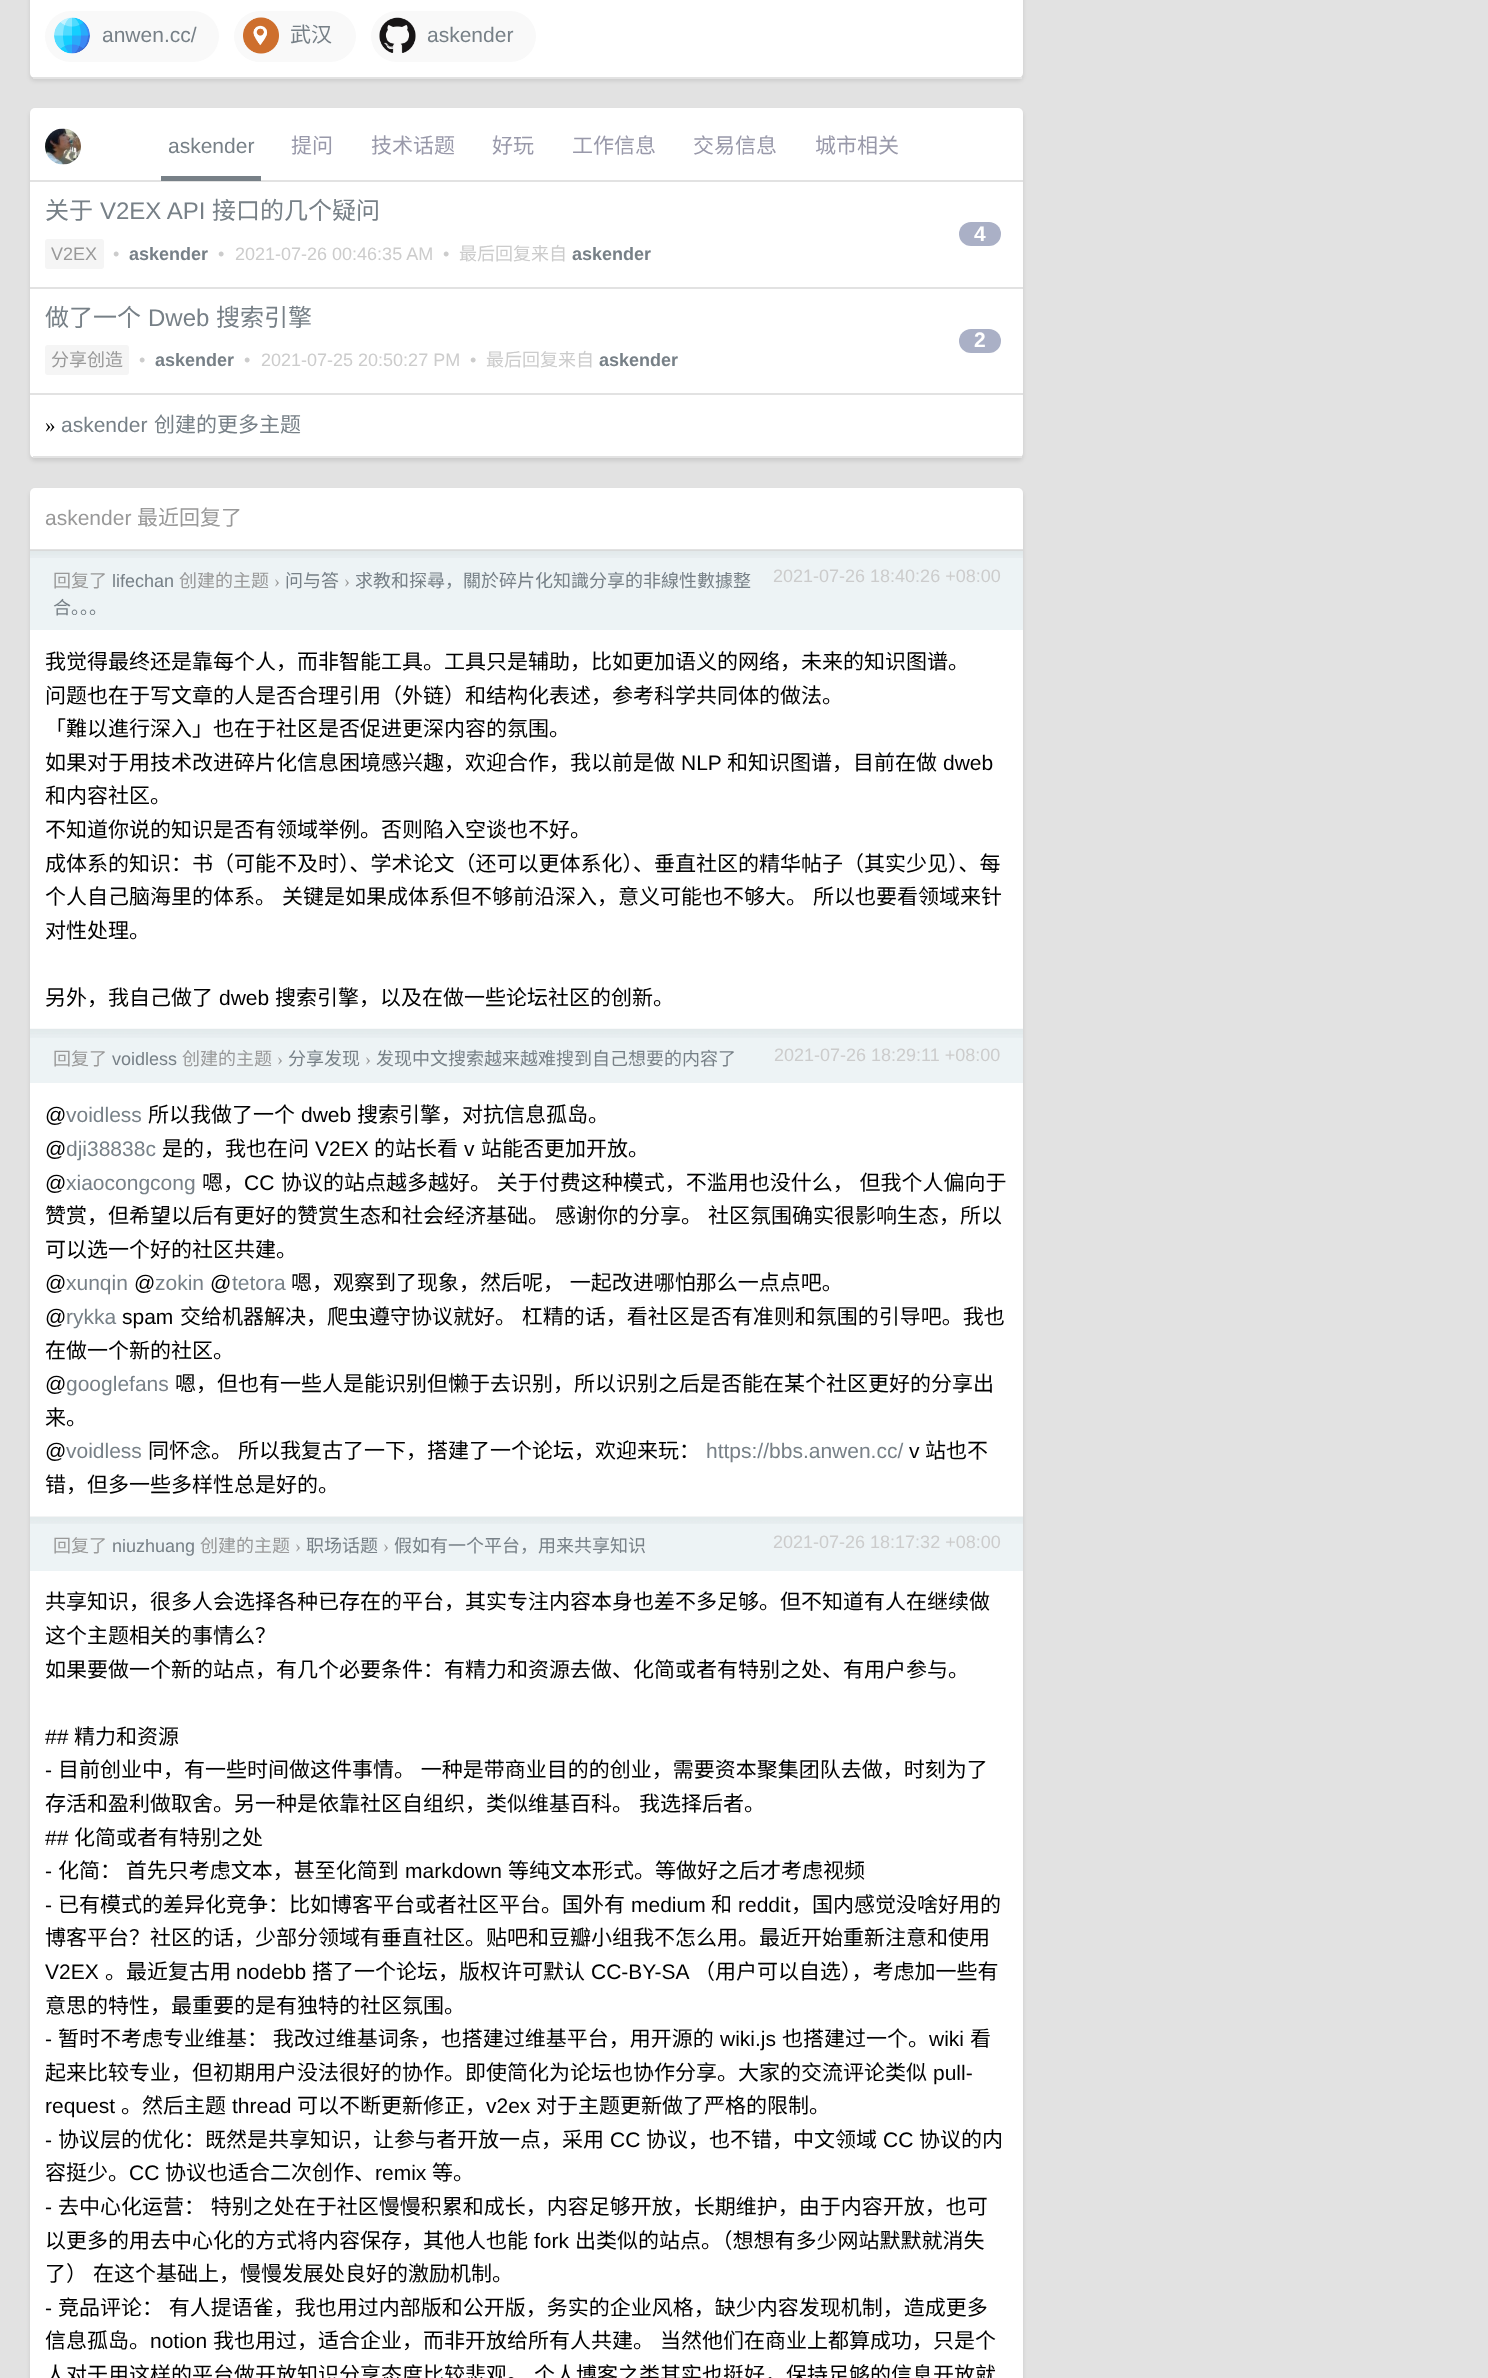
<svg xmlns="http://www.w3.org/2000/svg" width="1488" height="2378" viewBox="0 0 1488 2378">
  <rect width="100%" height="100%" fill="#e2e2e2"/>
  <rect x="30" y="-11" width="993" height="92" rx="5" fill="#0000001a" filter="blur(2px)"/>
  <rect x="30" y="-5" width="993" height="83" rx="5" fill="#fff"/>
  <path d="M33 77h989v2H33z" fill="#e2e2e2"/>
  <rect x="45" y="11" width="174" height="51" rx="25.5" fill="#f9f9f9"/>
  <image x="54" y="17" width="36" height="37" href="img/1.png"/>
  <rect x="234" y="11" width="122" height="51" rx="25.5" fill="#f9f9f9"/>
  <image x="243" y="17" width="36" height="37" href="img/2.png"/>
  <rect x="371" y="11" width="165" height="51" rx="25.5" fill="#f9f9f9"/>
  <image x="379" y="17" width="37" height="36" href="img/3.png"/>
  <rect x="30" y="111" width="993" height="350" rx="5" fill="#0000001a" filter="blur(2px)"/>
  <rect x="30" y="108" width="993" height="350" rx="5" fill="#fff"/>
  <path d="M33 456h989v2H33z" fill="#e2e2e2"/>
  <path d="M30 180h993v2H30z" fill="#e2e2e2"/>
  <image x="45" y="128" width="36" height="37" href="img/4.png"/>
  <path d="M161 176h100v5H161z" fill="#778087"/>
  <path d="M30 287h993v2H30z" fill="#e2e2e2"/>
  <rect x="45" y="239" width="59" height="30" rx="3" fill="#f5f5f5"/>
  <rect x="959" y="222" width="42" height="24" rx="12" fill="#aab0c6"/>
  <path d="M30 393h993v2H30z" fill="#e2e2e2"/>
  <rect x="45" y="345" width="84" height="30" rx="3" fill="#f5f5f5"/>
  <rect x="959" y="329" width="42" height="24" rx="12" fill="#aab0c6"/>
  <rect x="30" y="491" width="993" height="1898" rx="5" fill="#0000001a" filter="blur(2px)"/>
  <rect x="30" y="488" width="993" height="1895" rx="5" fill="#fff"/>
  <path d="M30 549h993v2H30z" fill="#e2e2e2"/>
  <path d="M30 551h993v79H30z" fill="#edf3f5"/>
  <image x="30" y="550" width="993" height="8" href="img/5.png"/>
  <path d="M30 1029h993v54H30z" fill="#edf3f5"/>
  <image x="30" y="1028" width="993" height="10" href="img/6.png"/>
  <path d="M30 1517h993v54H30z" fill="#edf3f5"/>
  <image x="30" y="1516" width="993" height="8" href="img/7.png"/>
  <text x="102" y="42" font-family="Liberation Sans" font-size="21" fill="#778087">anwen.cc/</text>
  <text x="290" y="42" font-family="Noto Sans CJK SC" font-size="21" fill="#778087">武汉</text>
  <g font-family="Liberation Sans" font-size="21" fill="#778087">
    <text x="427" y="42">askender</text>
    <text x="168" y="153">askender</text>
  </g>
  <g font-family="Noto Sans CJK SC" font-size="21" fill="#99a">
    <text x="291" y="153">提问</text>
    <text x="371" y="153">技术话题</text>
    <text x="492" y="153">好玩</text>
    <text x="572" y="153">工作信息</text>
    <text x="693" y="153">交易信息</text>
    <text x="815" y="153">城市相关</text>
  </g>
  <text x="45" y="219" font-family="Noto Sans CJK SC" font-size="24" fill="#778087">关于</text>
  <text x="100" y="219" font-family="Liberation Sans" font-size="24" fill="#778087">V2EX API</text>
  <text x="212" y="219" font-family="Noto Sans CJK SC" font-size="24" fill="#778087">接口的几个疑问</text>
  <text x="51" y="260" font-family="Liberation Sans" font-size="18" fill="#999">V2EX</text>
  <text x="113" y="260" font-family="Liberation Sans" font-size="18" fill="#ccc">•</text>
  <text x="129" y="260" font-family="Liberation Sans" font-size="18" font-weight="bold" fill="#778087">askender</text>
  <g font-family="Liberation Sans" font-size="18" fill="#ccc">
    <text x="218" y="260">•</text>
    <text x="235" y="260">2021-07-26 00:46:35 AM</text>
    <text x="443" y="260">•</text>
  </g>
  <text x="459" y="260" font-family="Noto Sans CJK SC" font-size="18" fill="#ccc">最后回复来自</text>
  <text x="572" y="260" font-family="Liberation Sans" font-size="18" font-weight="bold" fill="#778087">askender</text>
  <text x="974" y="241" font-family="Liberation Sans" font-size="21" font-weight="bold" fill="#fff">4</text>
  <text x="45" y="326" font-family="Noto Sans CJK SC" font-size="24" fill="#778087">做了一个</text>
  <text x="148" y="326" font-family="Liberation Sans" font-size="24" fill="#778087">Dweb</text>
  <text x="216" y="326" font-family="Noto Sans CJK SC" font-size="24" fill="#778087">搜索引擎</text>
  <text x="51" y="366" font-family="Noto Sans CJK SC" font-size="18" fill="#999">分享创造</text>
  <text x="139" y="366" font-family="Liberation Sans" font-size="18" fill="#ccc">•</text>
  <text x="155" y="366" font-family="Liberation Sans" font-size="18" font-weight="bold" fill="#778087">askender</text>
  <g font-family="Liberation Sans" font-size="18" fill="#ccc">
    <text x="244" y="366">•</text>
    <text x="261" y="366">2021-07-25 20:50:27 PM</text>
    <text x="470" y="366">•</text>
  </g>
  <text x="486" y="366" font-family="Noto Sans CJK SC" font-size="18" fill="#ccc">最后回复来自</text>
  <text x="599" y="366" font-family="Liberation Sans" font-size="18" font-weight="bold" fill="#778087">askender</text>
  <text x="974" y="347" font-family="Liberation Sans" font-size="21" font-weight="bold" fill="#fff">2</text>
  <text x="45" y="432" font-family="Liberation Serif" font-size="21" fill="#000">»</text>
  <text x="61" y="432" font-family="Liberation Sans" font-size="21" fill="#778087">askender</text>
  <text x="154" y="432" font-family="Noto Sans CJK SC" font-size="21" fill="#778087">创建的更多主题</text>
  <text x="45" y="525" font-family="Liberation Sans" font-size="21" fill="#999">askender</text>
  <text x="137" y="525" font-family="Noto Sans CJK SC" font-size="21" fill="#999">最近回复了</text>
  <text x="53" y="587" font-family="Noto Sans CJK SC" font-size="18" fill="#999">回复了</text>
  <text x="112" y="587" font-family="Liberation Sans" font-size="18" fill="#778087">lifechan</text>
  <text x="179" y="587" font-family="Noto Sans CJK SC" font-size="18" fill="#999">创建的主题</text>
  <text x="274" y="587" font-family="Liberation Serif" font-size="18" fill="#999">›</text>
  <text x="285" y="587" font-family="Noto Sans CJK SC" font-size="18" fill="#778087">问与答</text>
  <text x="344" y="587" font-family="Liberation Serif" font-size="18" fill="#999">›</text>
  <text x="355" y="587" font-family="Noto Sans CJK SC" font-size="18" fill="#778087">求教和探尋，關於碎片化知識分享的非線性數據整</text>
  <text x="773" y="582" font-family="Liberation Sans" font-size="18" fill="#ccc">2021-07-26 18:40:26 +08:00</text>
  <text x="53" y="614" font-family="Noto Sans CJK SC" font-size="18" fill="#778087">合。。。</text>
  <g font-family="Noto Sans CJK SC" font-size="21" fill="#000">
    <text x="45" y="669">我觉得最终还是靠每个人，而非智能工具。工具只是辅助，比如更加语义的网络，未来的知识图谱。</text>
    <text x="45" y="703">问题也在于写文章的人是否合理引用（外链）和结构化表述，参考科学共同体的做法。</text>
    <text x="45" y="736">「難以進行深入」也在于社区是否促进更深内容的氛围。</text>
    <text x="45" y="770">如果对于用技术改进碎片化信息困境感兴趣，欢迎合作，我以前是做</text>
  </g>
  <text x="681" y="770" font-family="Liberation Sans" font-size="21" fill="#000">NLP</text>
  <text x="727" y="770" font-family="Noto Sans CJK SC" font-size="21" fill="#000">和知识图谱，目前在做</text>
  <text x="943" y="770" font-family="Liberation Sans" font-size="21" fill="#000">dweb</text>
  <g font-family="Noto Sans CJK SC" font-size="21" fill="#000">
    <text x="45" y="803">和内容社区。</text>
    <text x="45" y="837">不知道你说的知识是否有领域举例。否则陷入空谈也不好。</text>
    <text x="45" y="871">成体系的知识：书（可能不及时）、学术论文（还可以更体系化）、垂直社区的精华帖子（其实少见）、每</text>
    <text x="45" y="904">个人自己脑海里的体系。</text>
    <text x="282" y="904">关键是如果成体系但不够前沿深入，意义可能也不够大。</text>
    <text x="813" y="904">所以也要看领域来针</text>
    <text x="45" y="938">对性处理。</text>
    <text x="45" y="1005">另外，我自己做了</text>
  </g>
  <text x="219" y="1005" font-family="Liberation Sans" font-size="21" fill="#000">dweb</text>
  <text x="275" y="1005" font-family="Noto Sans CJK SC" font-size="21" fill="#000">搜索引擎，以及在做一些论坛社区的创新。</text>
  <text x="53" y="1065" font-family="Noto Sans CJK SC" font-size="18" fill="#999">回复了</text>
  <text x="112" y="1065" font-family="Liberation Sans" font-size="18" fill="#778087">voidless</text>
  <text x="182" y="1065" font-family="Noto Sans CJK SC" font-size="18" fill="#999">创建的主题</text>
  <text x="277" y="1065" font-family="Liberation Serif" font-size="18" fill="#999">›</text>
  <text x="288" y="1065" font-family="Noto Sans CJK SC" font-size="18" fill="#778087">分享发现</text>
  <text x="365" y="1065" font-family="Liberation Serif" font-size="18" fill="#999">›</text>
  <text x="376" y="1065" font-family="Noto Sans CJK SC" font-size="18" fill="#778087">发现中文搜索越来越难搜到自己想要的内容了</text>
  <text x="774" y="1061" font-family="Liberation Sans" font-size="18" fill="#ccc">2021-07-26 18:29:11 +08:00</text>
  <text x="45" y="1122" font-family="Liberation Sans" font-size="21" fill="#000">@</text>
  <text x="66" y="1122" font-family="Liberation Sans" font-size="21" fill="#778087">voidless</text>
  <text x="148" y="1122" font-family="Noto Sans CJK SC" font-size="21" fill="#000">所以我做了一个</text>
  <text x="301" y="1122" font-family="Liberation Sans" font-size="21" fill="#000">dweb</text>
  <text x="357" y="1122" font-family="Noto Sans CJK SC" font-size="21" fill="#000">搜索引擎，对抗信息孤岛。</text>
  <text x="45" y="1156" font-family="Liberation Sans" font-size="21" fill="#000">@</text>
  <text x="66" y="1156" font-family="Liberation Sans" font-size="21" fill="#778087">dji38838c</text>
  <text x="162" y="1156" font-family="Noto Sans CJK SC" font-size="21" fill="#000">是的，我也在问</text>
  <text x="315" y="1156" font-family="Liberation Sans" font-size="21" fill="#000">V2EX</text>
  <text x="374" y="1156" font-family="Noto Sans CJK SC" font-size="21" fill="#000">的站长看</text>
  <text x="464" y="1156" font-family="Liberation Sans" font-size="21" fill="#000">v</text>
  <text x="481" y="1156" font-family="Noto Sans CJK SC" font-size="21" fill="#000">站能否更加开放。</text>
  <text x="45" y="1190" font-family="Liberation Sans" font-size="21" fill="#000">@</text>
  <text x="66" y="1190" font-family="Liberation Sans" font-size="21" fill="#778087">xiaocongcong</text>
  <text x="202" y="1190" font-family="Noto Sans CJK SC" font-size="21" fill="#000">嗯，</text>
  <text x="244" y="1190" font-family="Liberation Sans" font-size="21" fill="#000">CC</text>
  <g font-family="Noto Sans CJK SC" font-size="21" fill="#000">
    <text x="281" y="1190" word-spacing="1">协议的站点越多越好。 关于付费这种模式，不滥用也没什么， 但我个人偏向于</text>
    <text x="45" y="1223">赞赏，但希望以后有更好的赞赏生态和社会经济基础。</text>
    <text x="555" y="1223">感谢你的分享。</text>
    <text x="708" y="1223">社区氛围确实很影响生态，所以</text>
    <text x="45" y="1257">可以选一个好的社区共建。</text>
  </g>
  <text x="45" y="1290" font-family="Liberation Sans" font-size="21" fill="#000">@</text>
  <text x="66" y="1290" font-family="Liberation Sans" font-size="21" fill="#778087">xunqin</text>
  <text x="134" y="1290" font-family="Liberation Sans" font-size="21" fill="#000">@</text>
  <text x="155" y="1290" font-family="Liberation Sans" font-size="21" fill="#778087">zokin</text>
  <text x="210" y="1290" font-family="Liberation Sans" font-size="21" fill="#000">@</text>
  <text x="232" y="1290" font-family="Liberation Sans" font-size="21" fill="#778087">tetora</text>
  <text x="291" y="1290" word-spacing="1" font-family="Noto Sans CJK SC" font-size="21" fill="#000">嗯，观察到了现象，然后呢， 一起改进哪怕那么一点点吧。</text>
  <text x="45" y="1324" font-family="Liberation Sans" font-size="21" fill="#000">@</text>
  <text x="66" y="1324" font-family="Liberation Sans" font-size="21" fill="#778087">rykka</text>
  <text x="122" y="1324" font-family="Liberation Sans" font-size="21" fill="#000">spam</text>
  <g font-family="Noto Sans CJK SC" font-size="21" fill="#000">
    <text x="180" y="1324" word-spacing="1">交给机器解决，爬虫遵守协议就好。 杠精的话，看社区是否有准则和氛围的引导吧。我也</text>
    <text x="45" y="1358">在做一个新的社区。</text>
  </g>
  <text x="45" y="1391" font-family="Liberation Sans" font-size="21" fill="#000">@</text>
  <text x="66" y="1391" font-family="Liberation Sans" font-size="21" fill="#778087">googlefans</text>
  <g font-family="Noto Sans CJK SC" font-size="21" fill="#000">
    <text x="175" y="1391">嗯，但也有一些人是能识别但懒于去识别，所以识别之后是否能在某个社区更好的分享出</text>
    <text x="45" y="1425">来。</text>
  </g>
  <text x="45" y="1458" font-family="Liberation Sans" font-size="21" fill="#000">@</text>
  <text x="66" y="1458" font-family="Liberation Sans" font-size="21" fill="#778087">voidless</text>
  <g font-family="Noto Sans CJK SC" font-size="21" fill="#000">
    <text x="148" y="1458">同怀念。</text>
    <text x="238" y="1458">所以我复古了一下，搭建了一个论坛，欢迎来玩：</text>
  </g>
  <text x="706" y="1458" font-family="Liberation Sans" font-size="21" fill="#778087">https://bbs.anwen.cc/</text>
  <text x="909" y="1458" font-family="Liberation Sans" font-size="21" fill="#000">v</text>
  <g font-family="Noto Sans CJK SC" font-size="21" fill="#000">
    <text x="925" y="1458">站也不</text>
    <text x="45" y="1492">错，但多一些多样性总是好的。</text>
  </g>
  <text x="53" y="1552" font-family="Noto Sans CJK SC" font-size="18" fill="#999">回复了</text>
  <text x="112" y="1552" font-family="Liberation Sans" font-size="18" fill="#778087">niuzhuang</text>
  <text x="200" y="1552" font-family="Noto Sans CJK SC" font-size="18" fill="#999">创建的主题</text>
  <text x="295" y="1552" font-family="Liberation Serif" font-size="18" fill="#999">›</text>
  <text x="306" y="1552" font-family="Noto Sans CJK SC" font-size="18" fill="#778087">职场话题</text>
  <text x="383" y="1552" font-family="Liberation Serif" font-size="18" fill="#999">›</text>
  <text x="394" y="1552" font-family="Noto Sans CJK SC" font-size="18" fill="#778087">假如有一个平台，用来共享知识</text>
  <text x="773" y="1548" font-family="Liberation Sans" font-size="18" fill="#ccc">2021-07-26 18:17:32 +08:00</text>
  <g font-family="Noto Sans CJK SC" font-size="21" fill="#000">
    <text x="45" y="1609">共享知识，很多人会选择各种已存在的平台，其实专注内容本身也差不多足够。但不知道有人在继续做</text>
    <text x="45" y="1643">这个主题相关的事情么？</text>
    <text x="45" y="1677">如果要做一个新的站点，有几个必要条件：有精力和资源去做、化简或者有特别之处、有用户参与。</text>
  </g>
  <text x="45" y="1744" font-family="Liberation Sans" font-size="21" fill="#000">##</text>
  <text x="74" y="1744" font-family="Noto Sans CJK SC" font-size="21" fill="#000">精力和资源</text>
  <text x="45" y="1777" font-family="Liberation Sans" font-size="21" fill="#000">-</text>
  <g font-family="Noto Sans CJK SC" font-size="21" fill="#000">
    <text x="58" y="1777" word-spacing="1">目前创业中，有一些时间做这件事情。 一种是带商业目的的创业，需要资本聚集团队去做，时刻为了</text>
    <text x="45" y="1811">存活和盈利做取舍。另一种是依靠社区自组织，类似维基百科。</text>
    <text x="639" y="1811">我选择后者。</text>
  </g>
  <text x="45" y="1845" font-family="Liberation Sans" font-size="21" fill="#000">##</text>
  <text x="74" y="1845" font-family="Noto Sans CJK SC" font-size="21" fill="#000">化简或者有特别之处</text>
  <text x="45" y="1878" font-family="Liberation Sans" font-size="21" fill="#000">-</text>
  <text x="58" y="1878" font-family="Noto Sans CJK SC" font-size="21" fill="#000">化简： 首先只考虑文本，甚至化简到</text>
  <text x="405" y="1878" font-family="Liberation Sans" font-size="21" fill="#000">markdown</text>
  <text x="508" y="1878" font-family="Noto Sans CJK SC" font-size="21" fill="#000">等纯文本形式。等做好之后才考虑视频</text>
  <text x="45" y="1912" font-family="Liberation Sans" font-size="21" fill="#000">-</text>
  <text x="58" y="1912" font-family="Noto Sans CJK SC" font-size="21" fill="#000">已有模式的差异化竞争：比如博客平台或者社区平台。国外有</text>
  <text x="631" y="1912" font-family="Liberation Sans" font-size="21" fill="#000">medium</text>
  <text x="711" y="1912" font-family="Noto Sans CJK SC" font-size="21" fill="#000">和</text>
  <text x="738" y="1912" font-family="Liberation Sans" font-size="21" fill="#000">reddit</text>
  <g font-family="Noto Sans CJK SC" font-size="21" fill="#000">
    <text x="791" y="1912">，国内感觉没啥好用的</text>
    <text x="45" y="1945">博客平台？社区的话，少部分领域有垂直社区。贴吧和豆瓣小组我不怎么用。最近开始重新注意和使用</text>
  </g>
  <text x="45" y="1979" font-family="Liberation Sans" font-size="21" fill="#000">V2EX</text>
  <text x="105" y="1979" font-family="Noto Sans CJK SC" font-size="21" fill="#000">。最近复古用</text>
  <text x="236" y="1979" font-family="Liberation Sans" font-size="21" fill="#000">nodebb</text>
  <text x="312" y="1979" font-family="Noto Sans CJK SC" font-size="21" fill="#000">搭了一个论坛，版权许可默认</text>
  <text x="591" y="1979" font-family="Liberation Sans" font-size="21" fill="#000">CC-BY-SA</text>
  <g font-family="Noto Sans CJK SC" font-size="21" fill="#000">
    <text x="694" y="1979">（用户可以自选），考虑加一些有</text>
    <text x="45" y="2013">意思的特性，最重要的是有独特的社区氛围。</text>
  </g>
  <text x="45" y="2046" font-family="Liberation Sans" font-size="21" fill="#000">-</text>
  <text x="58" y="2046" font-family="Noto Sans CJK SC" font-size="21" fill="#000">暂时不考虑专业维基： 我改过维基词条，也搭建过维基平台，用开源的</text>
  <text x="720" y="2046" font-family="Liberation Sans" font-size="21" fill="#000">wiki.js</text>
  <text x="782" y="2046" font-family="Noto Sans CJK SC" font-size="21" fill="#000">也搭建过一个。</text>
  <text x="929" y="2046" font-family="Liberation Sans" font-size="21" fill="#000">wiki</text>
  <g font-family="Noto Sans CJK SC" font-size="21" fill="#000">
    <text x="970" y="2046">看</text>
    <text x="45" y="2080">起来比较专业，但初期用户没法很好的协作。即使简化为论坛也协作分享。大家的交流评论类似</text>
  </g>
  <g font-family="Liberation Sans" font-size="21" fill="#000">
    <text x="933" y="2080">pull-</text>
    <text x="45" y="2113">request</text>
  </g>
  <text x="121" y="2113" font-family="Noto Sans CJK SC" font-size="21" fill="#000">。然后主题</text>
  <text x="232" y="2113" font-family="Liberation Sans" font-size="21" fill="#000">thread</text>
  <text x="297" y="2113" font-family="Noto Sans CJK SC" font-size="21" fill="#000">可以不断更新修正，</text>
  <text x="486" y="2113" font-family="Liberation Sans" font-size="21" fill="#000">v2ex</text>
  <text x="536" y="2113" font-family="Noto Sans CJK SC" font-size="21" fill="#000">对于主题更新做了严格的限制。</text>
  <text x="45" y="2147" font-family="Liberation Sans" font-size="21" fill="#000">-</text>
  <text x="58" y="2147" font-family="Noto Sans CJK SC" font-size="21" fill="#000">协议层的优化：既然是共享知识，让参与者开放一点，采用</text>
  <text x="610" y="2147" font-family="Liberation Sans" font-size="21" fill="#000">CC</text>
  <text x="646" y="2147" font-family="Noto Sans CJK SC" font-size="21" fill="#000">协议，也不错，中文领域</text>
  <text x="883" y="2147" font-family="Liberation Sans" font-size="21" fill="#000">CC</text>
  <g font-family="Noto Sans CJK SC" font-size="21" fill="#000">
    <text x="919" y="2147">协议的内</text>
    <text x="45" y="2180">容挺少。</text>
  </g>
  <text x="129" y="2180" font-family="Liberation Sans" font-size="21" fill="#000">CC</text>
  <text x="165" y="2180" font-family="Noto Sans CJK SC" font-size="21" fill="#000">协议也适合二次创作、</text>
  <text x="375" y="2180" font-family="Liberation Sans" font-size="21" fill="#000">remix</text>
  <text x="432" y="2180" font-family="Noto Sans CJK SC" font-size="21" fill="#000">等。</text>
  <text x="45" y="2214" font-family="Liberation Sans" font-size="21" fill="#000">-</text>
  <g font-family="Noto Sans CJK SC" font-size="21" fill="#000">
    <text x="58" y="2214" word-spacing="1">去中心化运营： 特别之处在于社区慢慢积累和成长，内容足够开放，长期维护，由于内容开放，也可</text>
    <text x="45" y="2248">以更多的用去中心化的方式将内容保存，其他人也能</text>
  </g>
  <text x="534" y="2248" font-family="Liberation Sans" font-size="21" fill="#000">fork</text>
  <g font-family="Noto Sans CJK SC" font-size="21" fill="#000">
    <text x="575" y="2248">出类似的站点。（想想有多少网站默默就消失</text>
    <text x="45" y="2281">了）</text>
    <text x="93" y="2281">在这个基础上，慢慢发展处良好的激励机制。</text>
  </g>
  <text x="45" y="2315" font-family="Liberation Sans" font-size="21" fill="#000">-</text>
  <g font-family="Noto Sans CJK SC" font-size="21" fill="#000">
    <text x="58" y="2315" word-spacing="1">竞品评论： 有人提语雀，我也用过内部版和公开版，务实的企业风格，缺少内容发现机制，造成更多</text>
    <text x="45" y="2348">信息孤岛。</text>
  </g>
  <text x="150" y="2348" font-family="Liberation Sans" font-size="21" fill="#000">notion</text>
  <g font-family="Noto Sans CJK SC" font-size="21" fill="#000">
    <text x="213" y="2348">我也用过，适合企业，而非开放给所有人共建。</text>
    <text x="660" y="2348">当然他们在商业上都算成功，只是个</text>
    <text x="45" y="2382">人对于用这样的平台做开放知识分享态度比较悲观。</text>
    <text x="534" y="2382">个人博客之类其实也挺好，保持足够的信息开放就</text>
  </g>
</svg>
